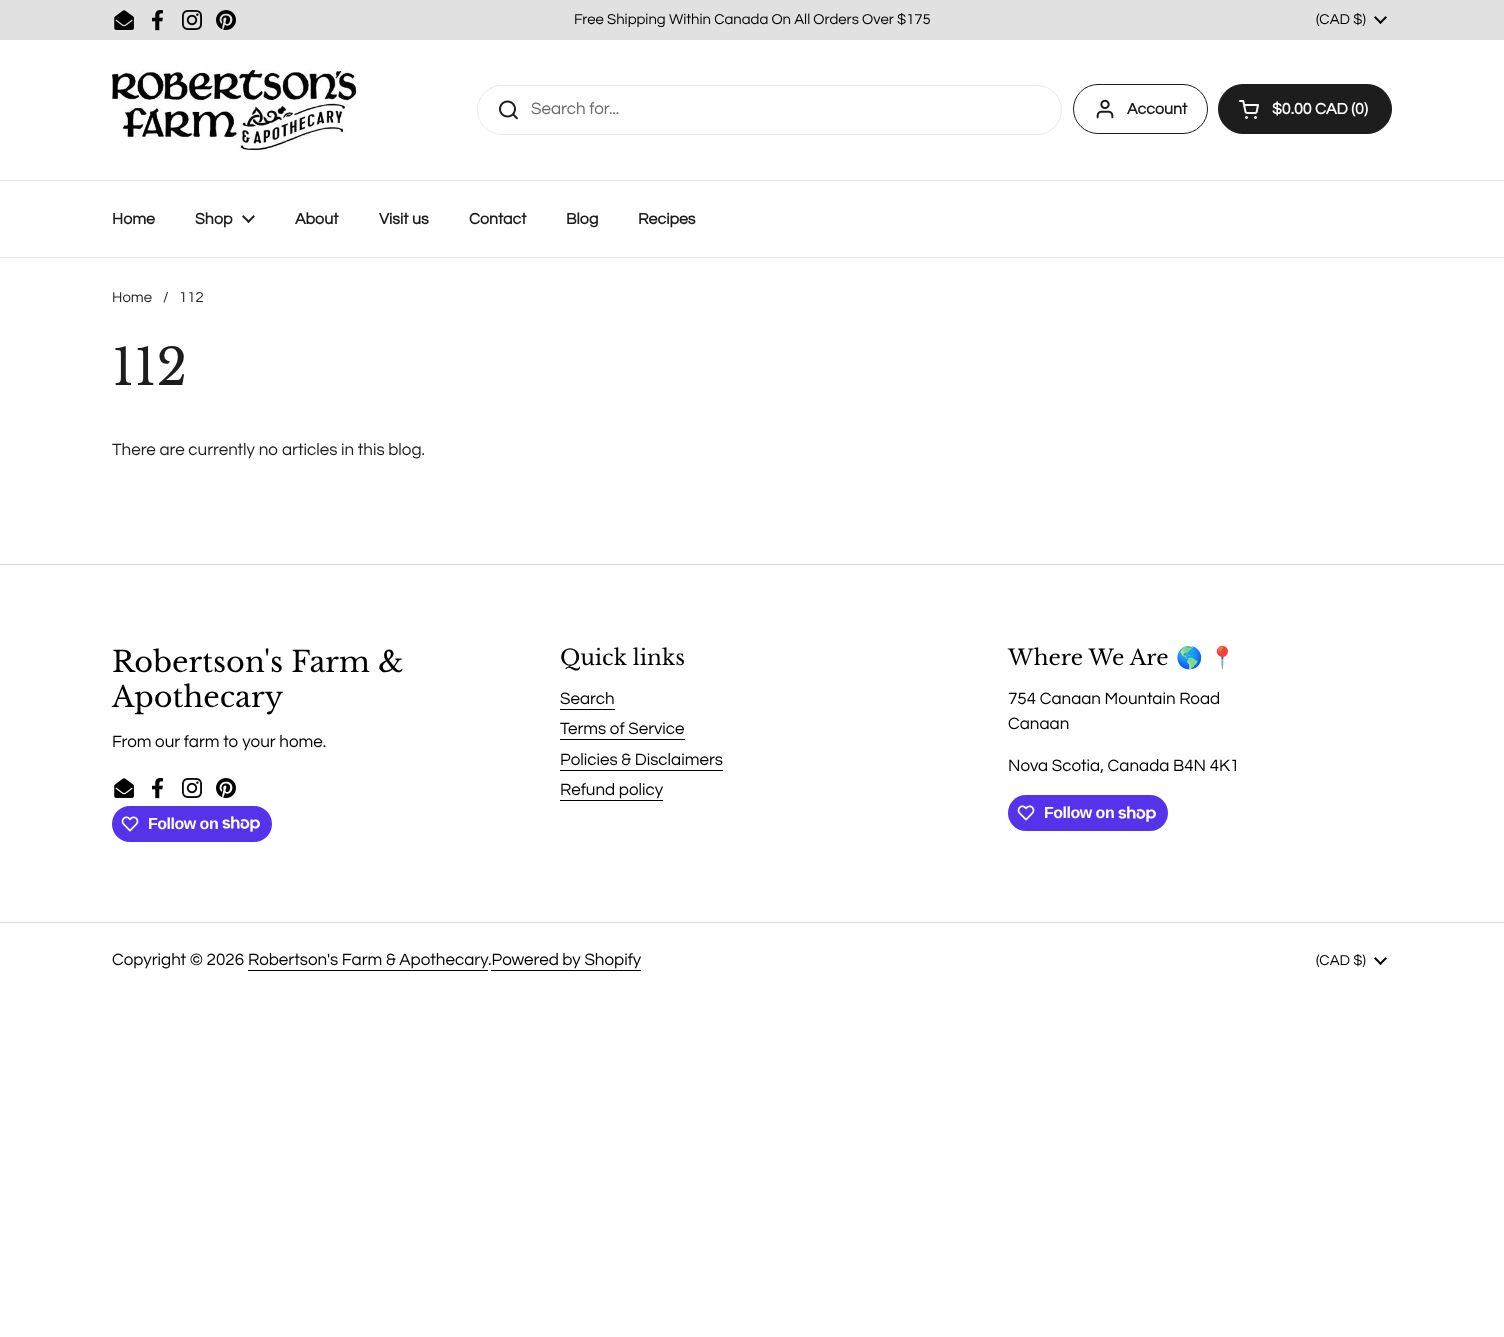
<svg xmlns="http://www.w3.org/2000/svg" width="1504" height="1337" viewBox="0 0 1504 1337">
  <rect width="100%" height="100%" fill="#fff"/>
  <path d="M0 0h1504v40H0z" fill="#e1e1e1"/>
  <image x="114" y="10" width="20" height="20" href="img/1.png"/>
  <image x="152" y="10" width="11" height="21" href="img/2.png"/>
  <image x="182" y="10" width="20" height="20" href="img/3.png"/>
  <image x="216" y="10" width="20" height="20" href="img/4.png"/>
  <image x="1374" y="16" width="13" height="8" href="img/5.png"/>
  <path d="M0 180h1504v1H0z" fill="#e8e8e8"/>
  <image x="112" y="70" width="244" height="80" href="img/6.png"/>
  <rect x="477.5" y="85.5" width="584" height="49" rx="24.5" fill="none" stroke="#e8e8e8"/>
  <image x="499" y="100" width="19" height="20" href="img/7.png"/>
  <rect x="1073.5" y="84.5" width="134" height="49" rx="24.5" fill="none" stroke="#1d1d1d"/>
  <image x="1096" y="99" width="18" height="20" href="img/8.png"/>
  <rect x="1218.5" y="84.5" width="173" height="49" rx="24.5" fill="#1d1d1d" stroke="#1d1d1d"/>
  <image x="1239" y="100" width="20" height="19" href="img/9.png"/>
  <path d="M0 257h1504v1H0z" fill="#e8e8e8"/>
  <image x="242" y="215" width="13" height="8" href="img/10.png"/>
  <path d="M0 564h1504v1H0z" fill="#d9d9d9"/>
  <image x="114" y="778" width="20" height="20" href="img/11.png"/>
  <image x="152" y="778" width="11" height="21" href="img/12.png"/>
  <image x="182" y="778" width="20" height="20" href="img/13.png"/>
  <image x="216" y="778" width="20" height="20" href="img/14.png"/>
  <rect x="112" y="806" width="160" height="36" rx="18" fill="#5433eb"/>
  <image x="121" y="816" width="18" height="16" href="img/15.png"/>
  <image x="222" y="816" width="38" height="16" href="img/16.png"/>
  <path d="M560 709h55v1H560z" fill="#000"/>
  <path d="M560 739h125v1H560z" fill="#000"/>
  <path d="M560 770h163v1H560z" fill="#000"/>
  <path d="M560 800h103v1H560z" fill="#000"/>
  <rect x="1008" y="795" width="160" height="36" rx="18" fill="#5433eb"/>
  <image x="1017" y="805" width="18" height="16" href="img/15.png"/>
  <image x="1118" y="806" width="38" height="16" href="img/16.png"/>
  <path d="M0 922h1504v1H0z" fill="#d9d9d9"/>
  <path d="M248 970h240v1H248z" fill="#000"/>
  <path d="M491 970h150v1H491z" fill="#000"/>
  <image x="1374" y="957" width="13" height="8" href="img/17.png"/>
  <g font-family="Questrial" font-size="14.9" fill="#000">
    <text x="574" y="24">Free Shipping Within Canada On All Orders Over $175</text>
    <text x="1316" y="24">(CAD $)</text>
  </g>
  <text x="531" y="114" font-family="Questrial" font-size="17" fill="#6a6a6a">Search for...</text>
  <text x="1127" y="114" font-family="Questrial" font-size="16" font-weight="bold" fill="#1d1d1d">Account</text>
  <text x="1272" y="114" font-family="Questrial" font-size="16" font-weight="bold" fill="#fff">$0.00 CAD (0)</text>
  <g font-family="Questrial" font-size="16" font-weight="bold" fill="#1d1d1d">
    <text x="112" y="224">Home</text>
    <text x="195" y="224">Shop</text>
    <text x="295" y="224">About</text>
    <text x="379" y="224">Visit us</text>
    <text x="469" y="224">Contact</text>
    <text x="566" y="224">Blog</text>
    <text x="638" y="224">Recipes</text>
  </g>
  <g font-family="Questrial" font-size="14.9" fill="#1d1d1d">
    <text x="112" y="302">Home</text>
    <text x="163" y="302">/</text>
    <text x="179" y="302">112</text>
  </g>
  <text x="112" y="385" font-family="Libre Baskerville" font-size="50" fill="#1d1d1d">112</text>
  <text x="112" y="455" font-family="Questrial" font-size="17" fill="#1d1d1d">There are currently no articles in this blog.</text>
  <g font-family="Libre Baskerville" font-size="28.75" fill="#000">
    <text x="112" y="672">Robertson's Farm &amp;</text>
    <text x="112" y="707">Apothecary</text>
  </g>
  <text x="112" y="747" font-family="Questrial" font-size="17" fill="#000">From our farm to your home.</text>
  <text x="148" y="829" font-family="Liberation Sans" font-size="16" font-weight="bold" letter-spacing="-0.5" fill="#fff">Follow on</text>
  <text x="560" y="665" font-family="Libre Baskerville" font-size="21.5" fill="#000">Quick links</text>
  <g font-family="Questrial" font-size="17" fill="#000">
    <text x="560" y="704">Search</text>
    <text x="560" y="734">Terms of Service</text>
    <text x="560" y="765">Policies &amp; Disclaimers</text>
    <text x="560" y="795">Refund policy</text>
  </g>
  <text x="1008" y="665" font-family="Libre Baskerville" font-size="21.5" fill="#000">Where We Are</text>
  <g font-family="Noto Color Emoji" font-size="21.5" fill="#000">
    <text x="1176" y="665">🌎</text>
    <text x="1209" y="665">📍</text>
  </g>
  <g font-family="Questrial" font-size="17" fill="#000">
    <text x="1008" y="704">754 Canaan Mountain Road</text>
    <text x="1008" y="729">Canaan</text>
    <text x="1008" y="771">Nova Scotia, Canada B4N 4K1</text>
  </g>
  <text x="1044" y="818" font-family="Liberation Sans" font-size="16" font-weight="bold" letter-spacing="-0.5" fill="#fff">Follow on</text>
  <g font-family="Questrial" font-size="17" fill="#000">
    <text x="112" y="965">Copyright © 2026</text>
    <text x="248" y="965">Robertson's Farm &amp; Apothecary</text>
    <text x="488" y="965">.Powered by Shopify</text>
  </g>
  <text x="1316" y="965" font-family="Questrial" font-size="14.9" fill="#000">(CAD $)</text>
</svg>
